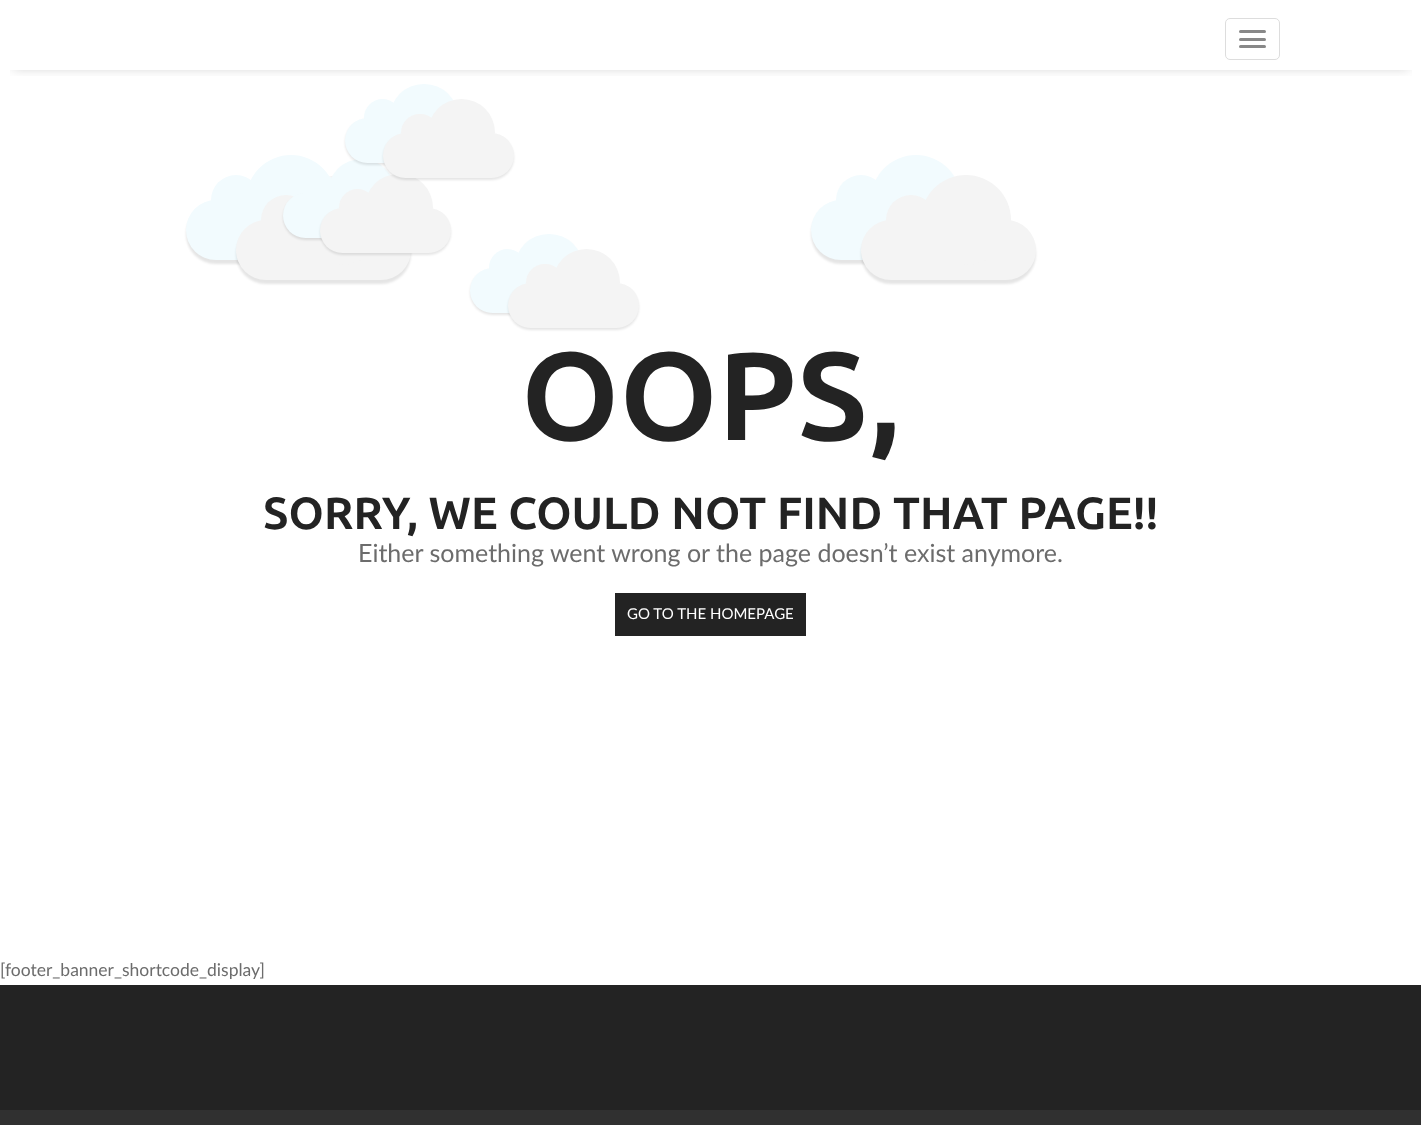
<svg xmlns="http://www.w3.org/2000/svg" width="1421" height="1125" viewBox="0 0 1421 1125">
  <defs>
    <clipPath id="clip1"><path d="M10 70h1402v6H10z"/></clipPath>
  </defs>
  <rect width="100%" height="100%" fill="#fff"/>
  <g clip-path="url(#clip1)">
    <path d="M13 5h1396v63H13z" fill="#00000033" filter="blur(6px)"/>
  </g>
  <rect x="1225.5" y="18.5" width="54" height="41" rx="4.5" fill="none" stroke="#ddd"/>
  <rect x="1239" y="30" width="27" height="3" rx="1.5" fill="#888"/>
  <rect x="1239" y="38" width="27" height="3" rx="1.5" fill="#888"/>
  <rect x="1239" y="45" width="27" height="3" rx="1.5" fill="#888"/>
  <rect x="390" y="84" width="68" height="67" rx="33.5" fill="#f2fbfe"/>
  <circle cx="382.5" cy="117.5" r="18.5" fill="#f2fbfe"/>
  <circle cx="291" cy="200" r="45" fill="#f2fbfe"/>
  <circle cx="236" cy="200" r="25" fill="#f2fbfe"/>
  <rect x="186" y="204" width="175" height="60" rx="30" fill="#0000001a" filter="blur(1px)"/>
  <rect x="186" y="200" width="175" height="60" rx="30" fill="#f2fbfe"/>
  <rect x="236" y="224" width="175" height="60" rx="30" fill="#0000001a" filter="blur(1px)"/>
  <rect x="236" y="220" width="175" height="60" rx="30" fill="#f4f4f4"/>
  <circle cx="341" cy="220" r="45" fill="#f4f4f4"/>
  <circle cx="361.5" cy="192.5" r="33.5" fill="#f2fbfe"/>
  <rect x="345" y="120" width="131" height="45" rx="22.5" fill="#0000001a" filter="blur(1px)"/>
  <rect x="345" y="118" width="131" height="45" rx="22.5" fill="#f2fbfe"/>
  <circle cx="286" cy="220" r="25" fill="#f4f4f4"/>
  <rect x="301" y="174" width="38" height="37" rx="18.5" fill="#f2fbfe"/>
  <rect x="283" y="195" width="131" height="45" rx="22.5" fill="#0000001a" filter="blur(1px)"/>
  <rect x="283" y="193" width="131" height="45" rx="22.5" fill="#f2fbfe"/>
  <rect x="320" y="210" width="131" height="45" rx="22.5" fill="#0000001a" filter="blur(1px)"/>
  <rect x="320" y="208" width="131" height="45" rx="22.5" fill="#f4f4f4"/>
  <rect x="365" y="174" width="68" height="67" rx="33.5" fill="#f4f4f4"/>
  <rect x="383" y="135" width="131" height="45" rx="22.5" fill="#0000001a" filter="blur(1px)"/>
  <rect x="383" y="133" width="131" height="45" rx="22.5" fill="#f4f4f4"/>
  <circle cx="461.5" cy="132.5" r="33.5" fill="#f4f4f4"/>
  <rect x="401" y="114" width="38" height="37" rx="18.5" fill="#f4f4f4"/>
  <circle cx="916" cy="200" r="45" fill="#f2fbfe"/>
  <circle cx="861" cy="200" r="25" fill="#f2fbfe"/>
  <rect x="811" y="204" width="175" height="60" rx="30" fill="#0000001a" filter="blur(1px)"/>
  <rect x="811" y="200" width="175" height="60" rx="30" fill="#f2fbfe"/>
  <rect x="861" y="224" width="175" height="60" rx="30" fill="#0000001a" filter="blur(1px)"/>
  <rect x="861" y="220" width="175" height="60" rx="30" fill="#f4f4f4"/>
  <circle cx="966" cy="220" r="45" fill="#f4f4f4"/>
  <circle cx="911" cy="220" r="25" fill="#f4f4f4"/>
  <circle cx="357.5" cy="207.5" r="18.5" fill="#f4f4f4"/>
  <rect x="515" y="234" width="68" height="67" rx="33.5" fill="#f2fbfe"/>
  <circle cx="507.5" cy="267.5" r="18.5" fill="#f2fbfe"/>
  <rect x="470" y="270" width="131" height="45" rx="22.5" fill="#0000001a" filter="blur(1px)"/>
  <rect x="470" y="268" width="131" height="45" rx="22.5" fill="#f2fbfe"/>
  <rect x="508" y="285" width="131" height="45" rx="22.5" fill="#0000001a" filter="blur(1px)"/>
  <rect x="508" y="283" width="131" height="45" rx="22.5" fill="#f4f4f4"/>
  <circle cx="586.5" cy="282.5" r="33.5" fill="#f4f4f4"/>
  <rect x="526" y="264" width="38" height="37" rx="18.5" fill="#f4f4f4"/>
  <path d="M615 593h191v43H615z" fill="#232323"/>
  <path d="M0 985h1421v125H0z" fill="#232323"/>
  <path d="M0 1110h1421v15H0z" fill="#303030"/>
  <text x="521" y="440" font-family="Ubuntu" font-size="125" font-weight="bold" fill="#232323">OOPS,</text>
  <text x="263" y="529" font-family="Ubuntu" font-size="45" font-weight="bold" fill="#232323">SORRY, WE COULD NOT FIND THAT PAGE!!</text>
  <text x="358" y="562" font-family="Lato" font-size="25" fill="#6c6c6c">Either something went wrong or the page doesn’t exist anymore.</text>
  <text x="627" y="619" font-family="Lato" font-size="15" fill="#fff">GO TO THE HOMEPAGE</text>
  <text x="0" y="976" font-family="Lato" font-size="17.5" fill="#6c6c6c">[footer_banner_shortcode_display]</text>
</svg>
